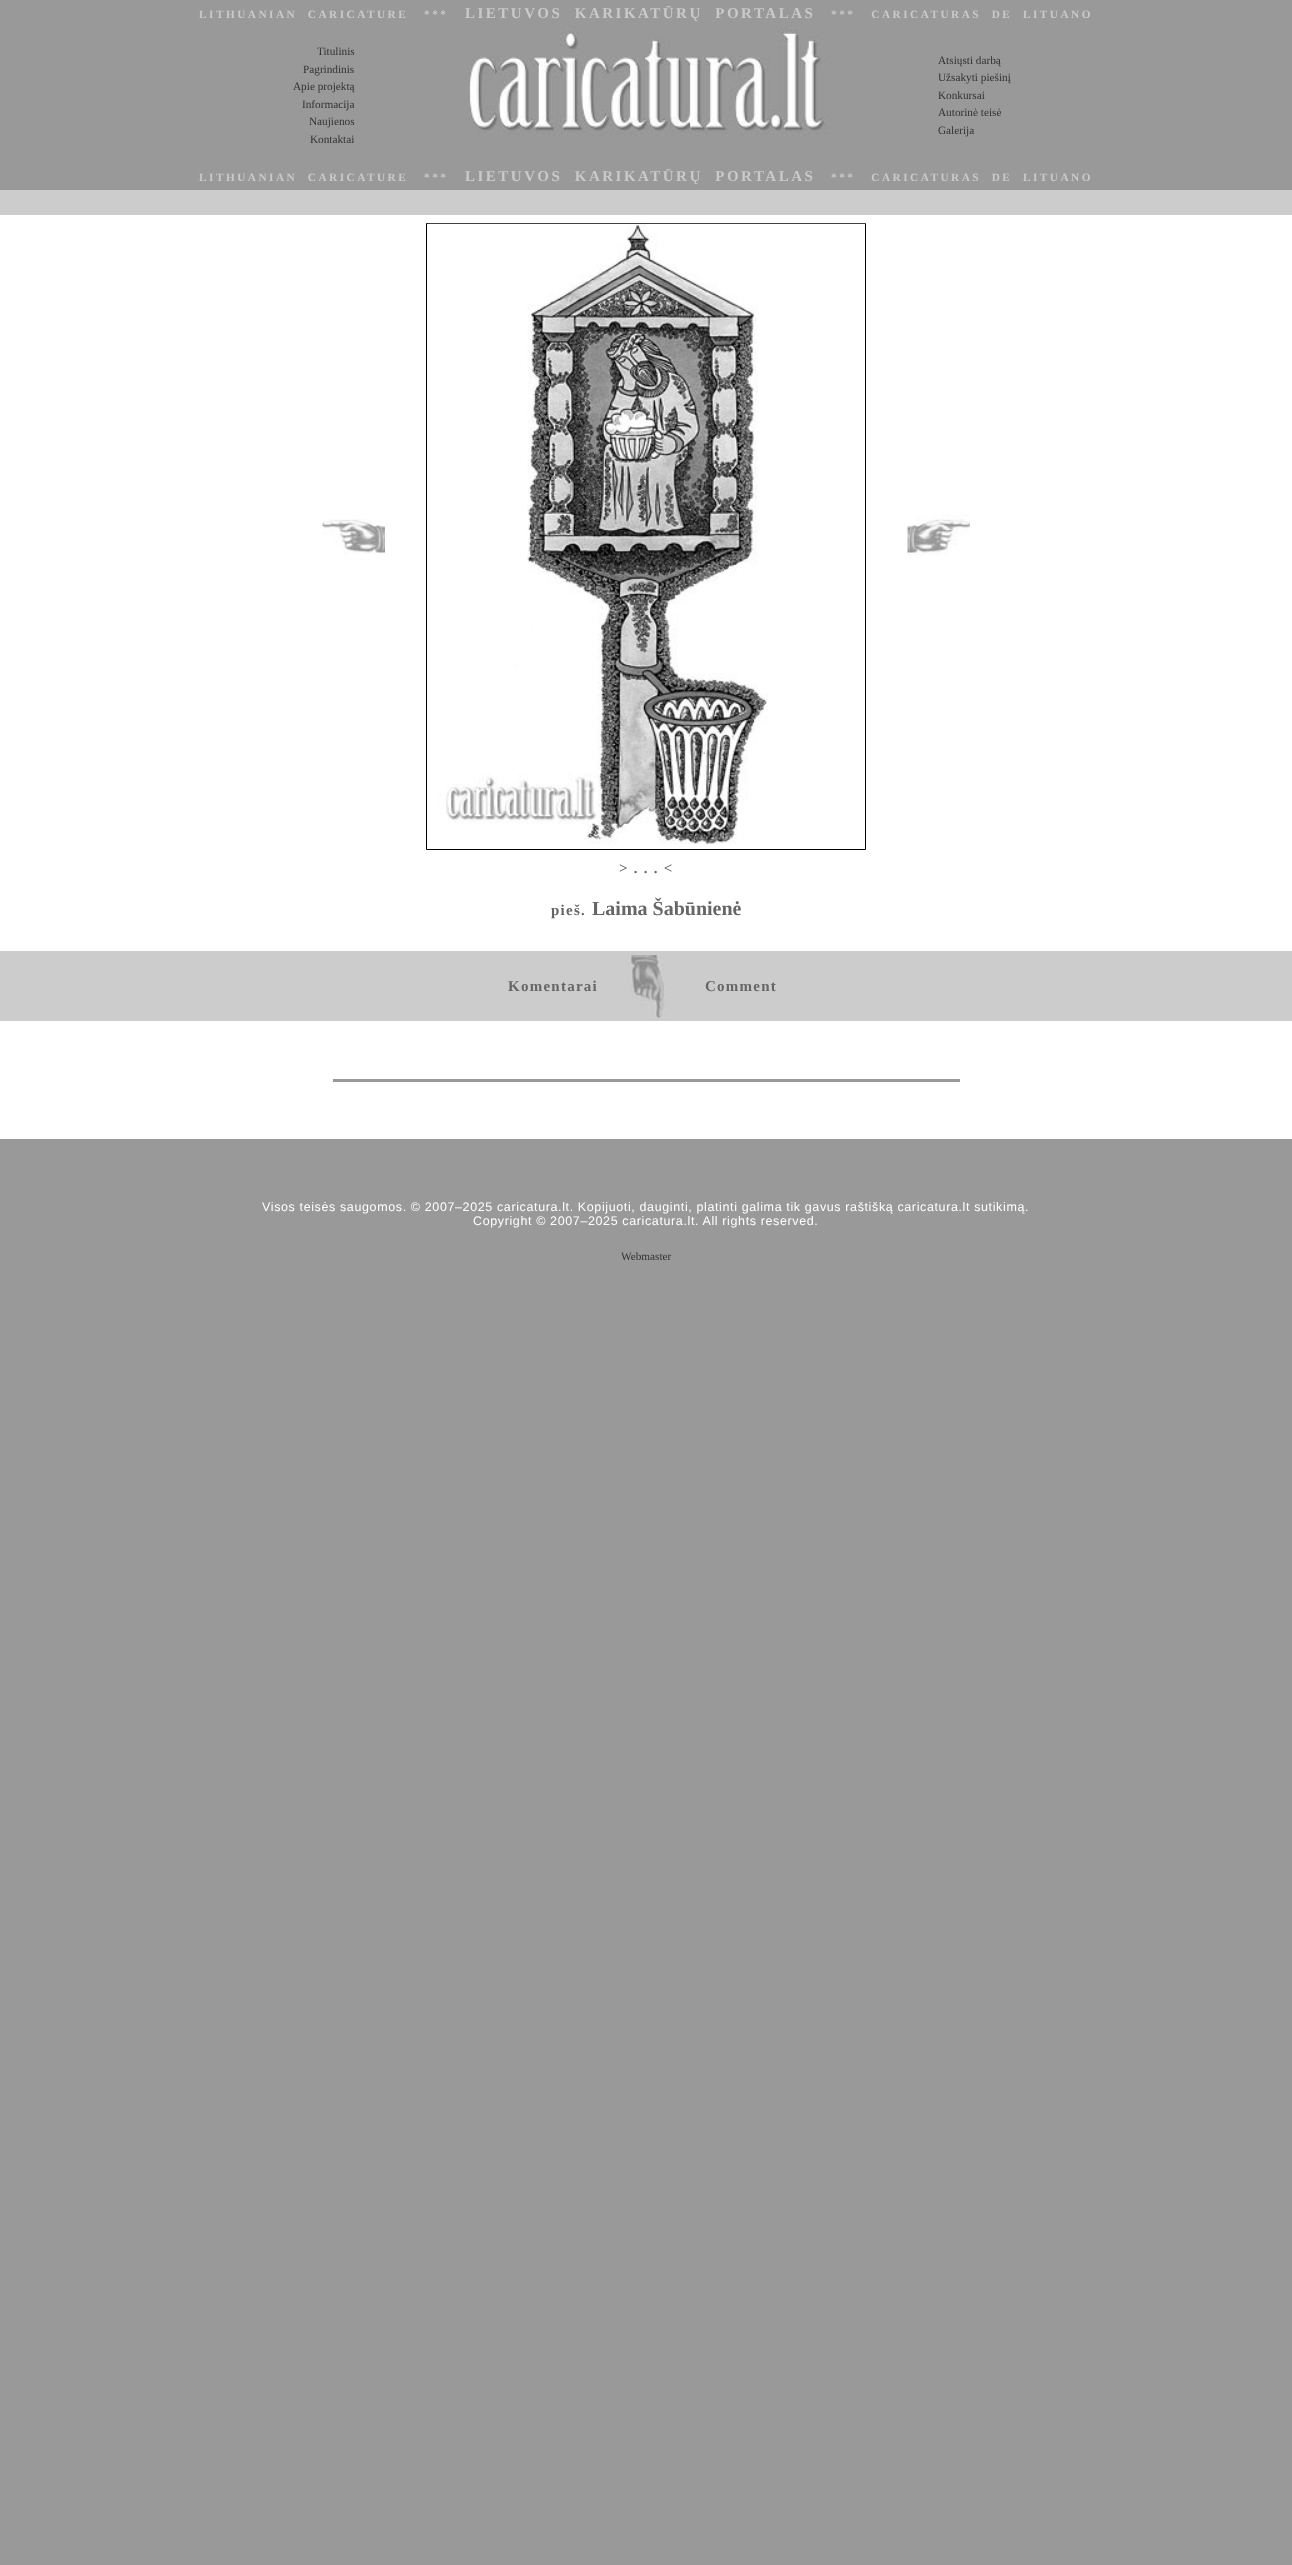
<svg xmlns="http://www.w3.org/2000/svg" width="1292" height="2565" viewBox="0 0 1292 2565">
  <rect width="100%" height="100%" fill="#999"/>
  <image x="469" y="26" width="360" height="110" href="img/1.png"/>
  <path d="M0 190h1292v25H0z" fill="#ccc"/>
  <path d="M0 215h1292v924H0z" fill="#fff"/>
  <image x="322" y="519" width="63" height="36" href="img/2.png"/>
  <path d="M426.5 223.5h439v626H426.5z" fill="none" stroke="#000"/>
  <image x="427" y="223" width="438" height="621" href="img/3.png"/>
  <image x="907" y="515" width="63" height="40" href="img/4.png"/>
  <path d="M0 951h1292v70H0z" fill="#ccc"/>
  <image x="628" y="955" width="38" height="63" href="img/5.png"/>
  <path d="M333 1079h627v3H333z" fill="#999"/>
  <text x="199" y="18" font-family="Liberation Serif" font-size="11.25" font-weight="bold" letter-spacing="2.5" fill="#cacaca" xml:space="preserve">LITHUANIAN  CARICATURE   ***</text>
  <text x="465" y="18" font-family="Liberation Serif" font-size="15" font-weight="bold" letter-spacing="2.5" fill="#cacaca" xml:space="preserve">LIETUVOS  KARIKATŪRŲ  PORTALAS</text>
  <text x="831" y="18" font-family="Liberation Serif" font-size="11.25" font-weight="bold" letter-spacing="2.5" fill="#cacaca" xml:space="preserve">***   CARICATURAS  DE  LITUANO</text>
  <g font-family="Liberation Serif" font-size="11.25" fill="#333">
    <text x="317" y="55">Titulinis</text>
    <text x="303" y="73">Pagrindinis</text>
    <text x="293" y="90">Apie projektą</text>
    <text x="302" y="108">Informacija</text>
    <text x="309" y="125">Naujienos</text>
    <text x="310" y="143">Kontaktai</text>
    <text x="938" y="64">Atsiųsti darbą</text>
    <text x="938" y="81">Užsakyti piešinį</text>
    <text x="938" y="99">Konkursai</text>
    <text x="938" y="116">Autorinė teisė</text>
    <text x="938" y="134">Galerija</text>
  </g>
  <text x="199" y="181" font-family="Liberation Serif" font-size="11.25" font-weight="bold" letter-spacing="2.5" fill="#cacaca" xml:space="preserve">LITHUANIAN  CARICATURE   ***</text>
  <text x="465" y="181" font-family="Liberation Serif" font-size="15" font-weight="bold" letter-spacing="2.5" fill="#cacaca" xml:space="preserve">LIETUVOS  KARIKATŪRŲ  PORTALAS</text>
  <text x="831" y="181" font-family="Liberation Serif" font-size="11.25" font-weight="bold" letter-spacing="2.5" fill="#cacaca" xml:space="preserve">***   CARICATURAS  DE  LITUANO</text>
  <g font-family="Liberation Serif" font-size="15" font-weight="bold" letter-spacing="1.25" fill="#666">
    <text x="619" y="873">&gt; . . . &lt;</text>
    <text x="551" y="915">pieš.</text>
  </g>
  <text x="592" y="915" font-family="Liberation Serif" font-size="20" font-weight="bold" fill="#666">Laima Šabūnienė</text>
  <g font-family="Liberation Serif" font-size="15" font-weight="bold" letter-spacing="1.25" fill="#666">
    <text x="508" y="991">Komentarai</text>
    <text x="705" y="991">Comment</text>
  </g>
  <g font-family="Liberation Sans" font-size="12.5" letter-spacing="0.62" fill="#fff">
    <text x="262" y="1211">Visos teisės saugomos. © 2007–2025 caricatura.lt. Kopijuoti, dauginti, platinti galima tik gavus raštišką caricatura.lt sutikimą.</text>
    <text x="473" y="1225">Copyright © 2007–2025 caricatura.lt. All rights reserved.</text>
  </g>
  <text x="621" y="1260" font-family="Liberation Serif" font-size="11.25" fill="#333">Webmaster</text>
</svg>
